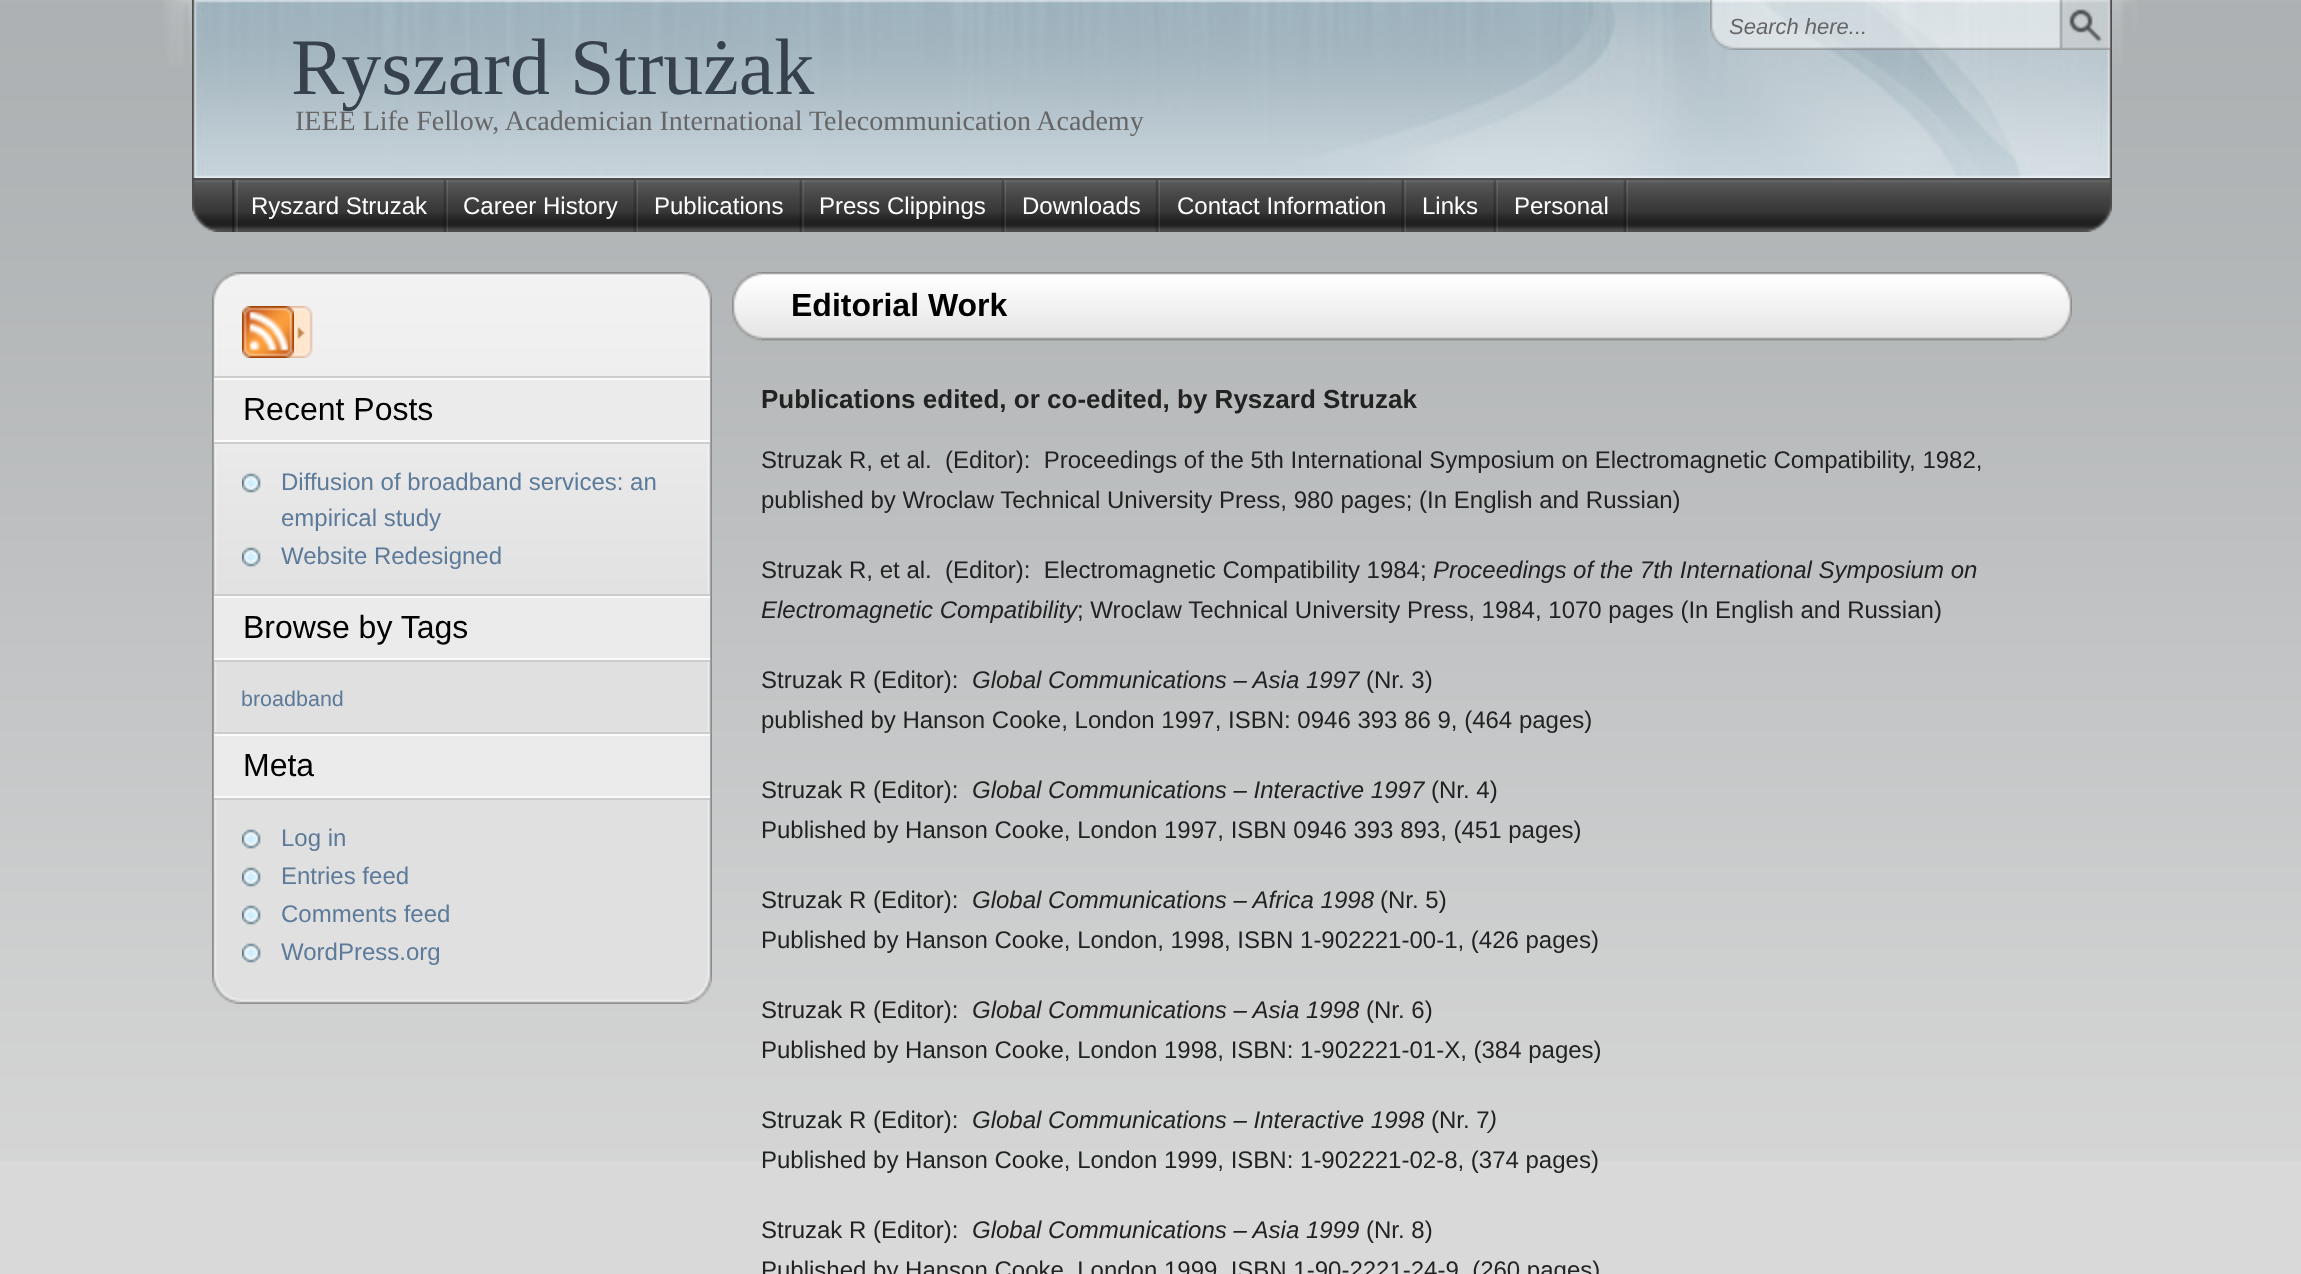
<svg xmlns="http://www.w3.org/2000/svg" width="2301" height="1274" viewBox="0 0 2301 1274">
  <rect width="100%" height="100%" fill="#d9d9d9"/>
  <image x="0" y="0" width="2301" height="1161" href="img/1.png"/>
  <image x="162" y="0" width="1976" height="65" href="img/2.png"/>
  <image x="192" y="0" width="1920" height="178" href="img/3.png"/>
  <image x="1710" y="0" width="400" height="50" href="img/4.png"/>
  <image x="192" y="178" width="1920" height="54" href="img/5.png"/>
  <path d="M194 178h1916v1H194z" fill="#4d4d4d"/>
  <image x="232" y="180" width="6" height="52" href="img/6.png"/>
  <image x="443" y="180" width="5" height="52" href="img/7.png"/>
  <image x="633" y="180" width="5" height="52" href="img/7.png"/>
  <image x="799" y="180" width="5" height="52" href="img/8.png"/>
  <image x="1001" y="180" width="5" height="52" href="img/7.png"/>
  <image x="1155" y="180" width="5" height="52" href="img/7.png"/>
  <image x="1401" y="180" width="5" height="52" href="img/8.png"/>
  <image x="1493" y="180" width="5" height="52" href="img/8.png"/>
  <image x="1623" y="180" width="5" height="52" href="img/7.png"/>
  <image x="212" y="272" width="470" height="340" href="img/9.png"/>
  <image x="682" y="272" width="30" height="340" href="img/10.png"/>
  <image x="212" y="612" width="470" height="362" href="img/11.png"/>
  <image x="682" y="612" width="30" height="362" href="img/12.png"/>
  <image x="242" y="306" width="52" height="52" href="img/13.png"/>
  <image x="294" y="306" width="19" height="52" href="img/14.png"/>
  <path d="M214 378h496v64H214z" fill="#fbfbfb"/>
  <path d="M214 376h496v2H214z" fill="#ccc"/>
  <path d="M214 442h496v2H214z" fill="#ccc"/>
  <path d="M214 380h496v60H214z" fill="#ebebeb"/>
  <image x="242" y="473" width="19" height="20" href="img/15.png"/>
  <image x="242" y="547" width="19" height="20" href="img/16.png"/>
  <path d="M214 596h496v64H214z" fill="#fbfbfb"/>
  <path d="M214 594h496v2H214z" fill="#ccc"/>
  <path d="M214 660h496v2H214z" fill="#ccc"/>
  <path d="M214 598h496v60H214z" fill="#ebebeb"/>
  <path d="M214 734h496v64H214z" fill="#fbfbfb"/>
  <path d="M214 732h496v2H214z" fill="#ccc"/>
  <path d="M214 798h496v2H214z" fill="#ccc"/>
  <path d="M214 736h496v60H214z" fill="#ebebeb"/>
  <image x="242" y="829" width="19" height="20" href="img/17.png"/>
  <image x="242" y="867" width="19" height="20" href="img/17.png"/>
  <image x="242" y="905" width="19" height="20" href="img/17.png"/>
  <image x="242" y="943" width="19" height="20" href="img/17.png"/>
  <image x="212" y="974" width="470" height="30" href="img/18.png"/>
  <image x="682" y="974" width="30" height="30" href="img/19.png"/>
  <image x="732" y="272" width="1310" height="28" href="img/20.png"/>
  <image x="762" y="272" width="1310" height="28" href="img/21.png"/>
  <image x="732" y="300" width="1280" height="41" href="img/22.png"/>
  <image x="762" y="300" width="1310" height="41" href="img/23.png"/>
  <text x="1729" y="34" font-family="Liberation Sans" font-size="22" font-style="italic" fill="#666">Search here...</text>
  <text x="291" y="94" font-family="Liberation Serif" font-size="80" fill="#36414d">Ryszard Strużak</text>
  <text x="295" y="130" font-family="Liberation Serif" font-size="28" fill="#666">IEEE Life Fellow, Academician International Telecommunication Academy</text>
  <g font-family="Liberation Sans" font-size="24" fill="#fff">
    <text x="251" y="214">Ryszard Struzak</text>
    <text x="463" y="214">Career History</text>
    <text x="654" y="214">Publications</text>
    <text x="819" y="214">Press Clippings</text>
    <text x="1022" y="214">Downloads</text>
    <text x="1177" y="214">Contact Information</text>
    <text x="1422" y="214">Links</text>
    <text x="1514" y="214">Personal</text>
  </g>
  <text x="243" y="420" font-family="Liberation Sans" font-size="32" fill="#000">Recent Posts</text>
  <g font-family="Liberation Sans" font-size="24" fill="#5c7a99">
    <text x="281" y="490">Diffusion of broadband services: an</text>
    <text x="281" y="526">empirical study</text>
    <text x="281" y="564">Website Redesigned</text>
  </g>
  <text x="243" y="638" font-family="Liberation Sans" font-size="32" fill="#000">Browse by Tags</text>
  <text x="241" y="706" font-family="Liberation Sans" font-size="21.5" fill="#5c7a99">broadband</text>
  <text x="243" y="776" font-family="Liberation Sans" font-size="32" fill="#000">Meta</text>
  <g font-family="Liberation Sans" font-size="24" fill="#5c7a99">
    <text x="281" y="846">Log in</text>
    <text x="281" y="884">Entries feed</text>
    <text x="281" y="922">Comments feed</text>
    <text x="281" y="960">WordPress.org</text>
  </g>
  <text x="791" y="316" font-family="Liberation Sans" font-size="32" font-weight="bold" fill="#000">Editorial Work</text>
  <text x="761" y="408" font-family="Liberation Sans" font-size="26" font-weight="bold" fill="#222">Publications edited, or co-edited, by Ryszard Struzak</text>
  <g font-family="Liberation Sans" font-size="24" fill="#222">
    <text x="761" y="468" xml:space="preserve">Struzak R, et al.  (Editor):  Proceedings of the 5th International Symposium on Electromagnetic Compatibility, 1982,</text>
    <text x="761" y="508">published by Wroclaw Technical University Press, 980 pages; (In English and Russian)</text>
    <text x="761" y="578" xml:space="preserve">Struzak R, et al.  (Editor):  Electromagnetic Compatibility 1984;</text>
  </g>
  <g font-family="Liberation Sans" font-size="24" font-style="italic" fill="#222">
    <text x="1433" y="578">Proceedings of the 7th International Symposium on</text>
    <text x="761" y="618">Electromagnetic Compatibility</text>
  </g>
  <g font-family="Liberation Sans" font-size="24" fill="#222">
    <text x="1077" y="618">; Wroclaw Technical University Press, 1984, 1070 pages (In English and Russian)</text>
    <text x="761" y="688">Struzak R (Editor):</text>
  </g>
  <text x="972" y="688" font-family="Liberation Sans" font-size="24" font-style="italic" fill="#222">Global Communications – Asia 1997</text>
  <g font-family="Liberation Sans" font-size="24" fill="#222">
    <text x="1366" y="688">(Nr. 3)</text>
    <text x="761" y="728">published by Hanson Cooke, London 1997, ISBN: 0946 393 86 9, (464 pages)</text>
    <text x="761" y="798">Struzak R (Editor):</text>
  </g>
  <text x="972" y="798" font-family="Liberation Sans" font-size="24" font-style="italic" fill="#222">Global Communications – Interactive 1997</text>
  <g font-family="Liberation Sans" font-size="24" fill="#222">
    <text x="1431" y="798">(Nr. 4)</text>
    <text x="761" y="838">Published by Hanson Cooke, London 1997, ISBN 0946 393 893, (451 pages)</text>
    <text x="761" y="908">Struzak R (Editor):</text>
  </g>
  <text x="972" y="908" font-family="Liberation Sans" font-size="24" font-style="italic" fill="#222">Global Communications – Africa 1998</text>
  <g font-family="Liberation Sans" font-size="24" fill="#222">
    <text x="1380" y="908">(Nr. 5)</text>
    <text x="761" y="948">Published by Hanson Cooke, London, 1998, ISBN 1-902221-00-1, (426 pages)</text>
    <text x="761" y="1018">Struzak R (Editor):</text>
  </g>
  <text x="972" y="1018" font-family="Liberation Sans" font-size="24" font-style="italic" fill="#222">Global Communications – Asia 1998</text>
  <g font-family="Liberation Sans" font-size="24" fill="#222">
    <text x="1366" y="1018">(Nr. 6)</text>
    <text x="761" y="1058">Published by Hanson Cooke, London 1998, ISBN: 1-902221-01-X, (384 pages)</text>
    <text x="761" y="1128">Struzak R (Editor):</text>
  </g>
  <text x="972" y="1128" font-family="Liberation Sans" font-size="24" font-style="italic" fill="#222">Global Communications – Interactive 1998</text>
  <text x="1431" y="1128" font-family="Liberation Sans" font-size="24" fill="#222">(Nr. 7</text>
  <text x="1489" y="1128" font-family="Liberation Sans" font-size="24" font-style="italic" fill="#222">)</text>
  <g font-family="Liberation Sans" font-size="24" fill="#222">
    <text x="761" y="1168">Published by Hanson Cooke, London 1999, ISBN: 1-902221-02-8, (374 pages)</text>
    <text x="761" y="1238">Struzak R (Editor):</text>
  </g>
  <text x="972" y="1238" font-family="Liberation Sans" font-size="24" font-style="italic" fill="#222">Global Communications – Asia 1999</text>
  <g font-family="Liberation Sans" font-size="24" fill="#222">
    <text x="1366" y="1238">(Nr. 8)</text>
    <text x="761" y="1278">Published by Hanson Cooke, London 1999, ISBN 1-90-2221-24-9, (260 pages)</text>
  </g>
</svg>
